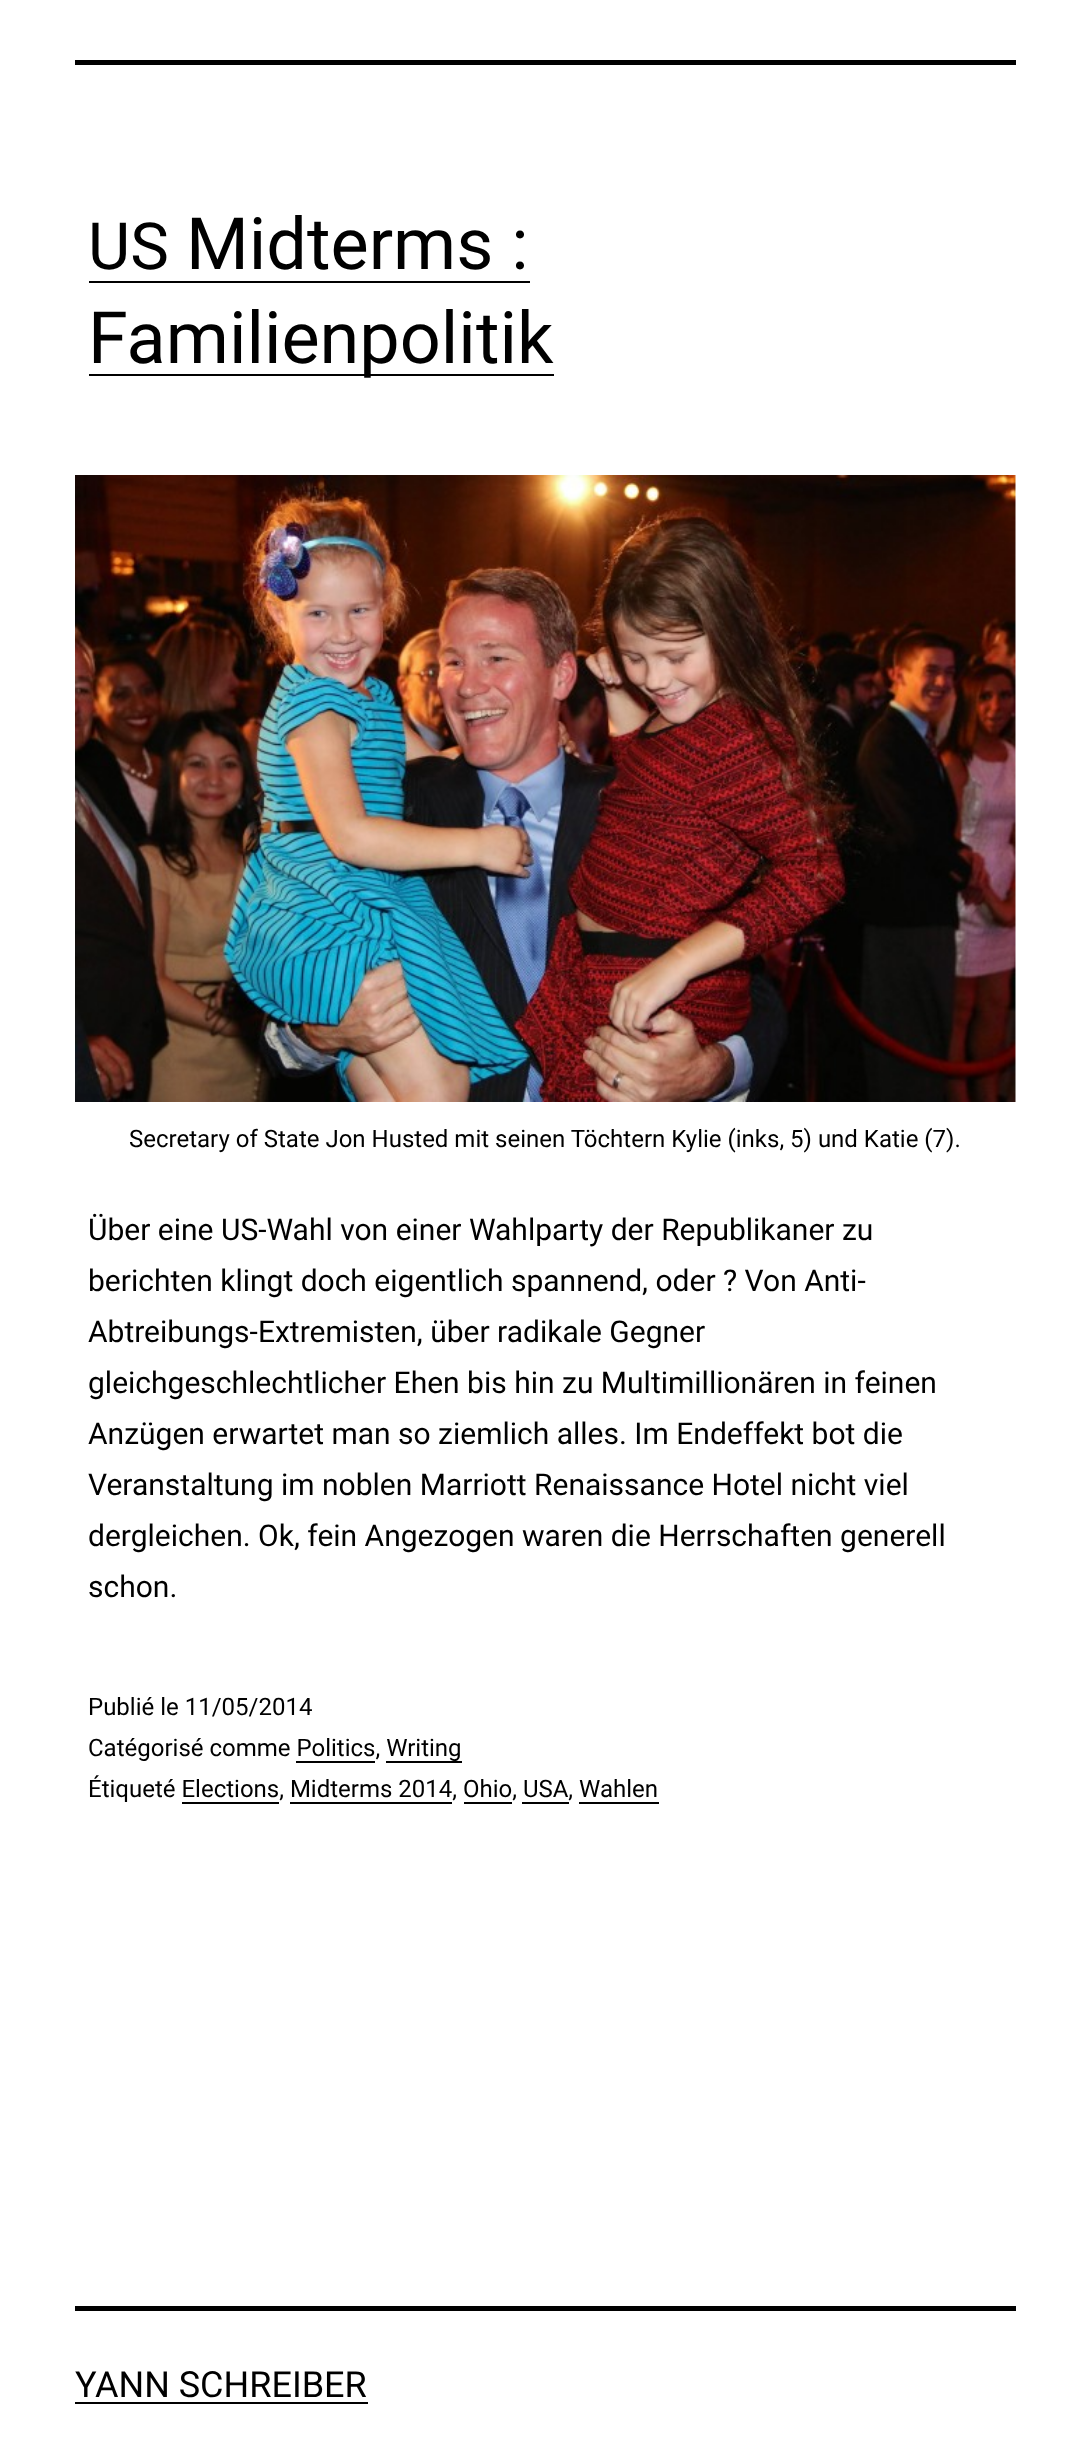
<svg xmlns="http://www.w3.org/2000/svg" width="1090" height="2455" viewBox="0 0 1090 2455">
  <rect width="100%" height="100%" fill="#fff"/>
  <path d="M75 60h941v5H75z" fill="#000"/>
  <path d="M89 281h441v2H89z" fill="#000"/>
  <path d="M89 374h465v2H89z" fill="#000"/>
  <image x="75" y="475" width="941" height="627" href="img/1.png"/>
  <path d="M296 1761h79v2H296z" fill="#000"/>
  <path d="M386 1761h76v2H386z" fill="#000"/>
  <path d="M182 1802h97v2H182z" fill="#000"/>
  <path d="M290 1802h162v2H290z" fill="#000"/>
  <path d="M464 1802h48v2H464z" fill="#000"/>
  <path d="M522 1802h47v2H522z" fill="#000"/>
  <path d="M579 1802h80v2H579z" fill="#000"/>
  <path d="M75 2306h941v5H75z" fill="#000"/>
  <path d="M75 2402h293v2H75z" fill="#000"/>
  <text x="88" y="269" font-family="Roboto" font-size="65" fill="#000">US</text>
  <g font-family="Roboto" font-size="72" fill="#000">
    <text x="186" y="269">Midterms :</text>
    <text x="88" y="363">Familienpolitik</text>
  </g>
  <text x="129" y="1147" font-family="Roboto" font-size="24" fill="#000">Secretary of State Jon Husted mit seinen Töchtern Kylie (inks, 5) und Katie (7).</text>
  <g font-family="Roboto" font-size="30" fill="#000">
    <text x="88" y="1240">Über eine US-Wahl von einer Wahlparty der Republikaner zu</text>
    <text x="88" y="1291">berichten klingt doch eigentlich spannend, oder ? Von Anti-</text>
    <text x="88" y="1342">Abtreibungs-Extremisten, über radikale Gegner</text>
    <text x="88" y="1393">gleichgeschlechtlicher Ehen bis hin zu Multimillionären in feinen</text>
    <text x="88" y="1444">Anzügen erwartet man so ziemlich alles. Im Endeffekt bot die</text>
    <text x="88" y="1495">Veranstaltung im noblen Marriott Renaissance Hotel nicht viel</text>
    <text x="88" y="1546">dergleichen. Ok, fein Angezogen waren die Herrschaften generell</text>
    <text x="88" y="1597">schon.</text>
  </g>
  <g font-family="Roboto" font-size="24" fill="#000">
    <text x="88" y="1715">Publié le 11/05/2014</text>
    <text x="88" y="1756">Catégorisé comme Politics, Writing</text>
    <text x="88" y="1797">Étiqueté Elections, Midterms 2014, Ohio, USA, Wahlen</text>
  </g>
  <text x="75" y="2397" font-family="Roboto" font-size="36" fill="#000">YANN SCHREIBER</text>
</svg>
